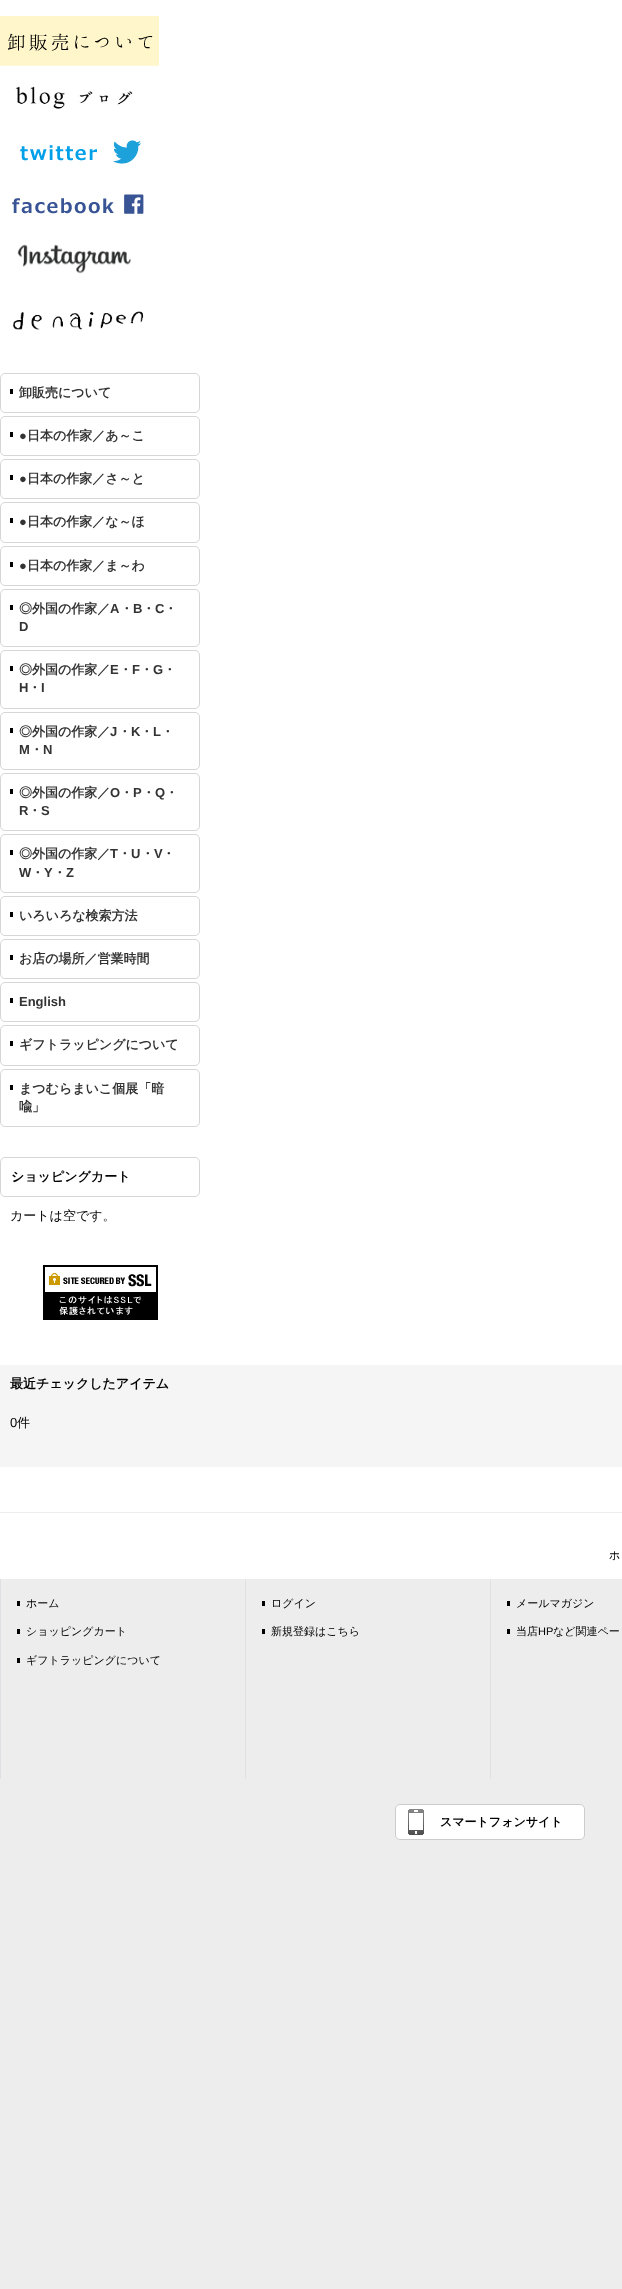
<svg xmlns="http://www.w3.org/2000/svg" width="622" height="2289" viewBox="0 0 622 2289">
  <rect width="100%" height="100%" fill="#fff"/>
  <image x="0" y="16" width="159" height="50" href="img/1.png"/>
  <image x="15" y="86" width="118" height="23" href="img/2.png"/>
  <image x="20" y="140" width="122" height="26" href="img/3.png"/>
  <image x="12" y="194" width="132" height="23" href="img/4.png"/>
  <image x="17" y="244" width="114" height="30" href="img/5.png"/>
  <image x="13" y="311" width="131" height="19" href="img/6.png"/>
  <rect x="0.5" y="373.5" width="199" height="39" rx="4.5" fill="none" stroke="#d6d6d6"/>
  <path d="M10 389h3v5H10z" fill="#000"/>
  <rect x="0.5" y="416.5" width="199" height="39" rx="4.5" fill="none" stroke="#d6d6d6"/>
  <path d="M10 432h3v5H10z" fill="#000"/>
  <rect x="0.5" y="459.5" width="199" height="39" rx="4.5" fill="none" stroke="#d6d6d6"/>
  <path d="M10 475h3v5H10z" fill="#000"/>
  <rect x="0.5" y="502.5" width="199" height="40" rx="4.5" fill="none" stroke="#d6d6d6"/>
  <path d="M10 518h3v5H10z" fill="#000"/>
  <rect x="0.5" y="546.5" width="199" height="39" rx="4.5" fill="none" stroke="#d6d6d6"/>
  <path d="M10 562h3v5H10z" fill="#000"/>
  <rect x="0.5" y="589.5" width="199" height="57" rx="4.5" fill="none" stroke="#d6d6d6"/>
  <path d="M10 605h3v5H10z" fill="#000"/>
  <rect x="0.5" y="650.5" width="199" height="58" rx="4.5" fill="none" stroke="#d6d6d6"/>
  <path d="M10 666h3v5H10z" fill="#000"/>
  <rect x="0.5" y="712.5" width="199" height="57" rx="4.5" fill="none" stroke="#d6d6d6"/>
  <path d="M10 728h3v5H10z" fill="#000"/>
  <rect x="0.5" y="773.5" width="199" height="57" rx="4.5" fill="none" stroke="#d6d6d6"/>
  <path d="M10 789h3v5H10z" fill="#000"/>
  <rect x="0.5" y="834.5" width="199" height="58" rx="4.5" fill="none" stroke="#d6d6d6"/>
  <path d="M10 850h3v5H10z" fill="#000"/>
  <rect x="0.5" y="896.5" width="199" height="39" rx="4.5" fill="none" stroke="#d6d6d6"/>
  <path d="M10 912h3v5H10z" fill="#000"/>
  <rect x="0.5" y="939.5" width="199" height="39" rx="4.5" fill="none" stroke="#d6d6d6"/>
  <path d="M10 955h3v5H10z" fill="#000"/>
  <rect x="0.5" y="982.5" width="199" height="39" rx="4.5" fill="none" stroke="#d6d6d6"/>
  <path d="M10 998h3v5H10z" fill="#000"/>
  <rect x="0.5" y="1025.5" width="199" height="40" rx="4.5" fill="none" stroke="#d6d6d6"/>
  <path d="M10 1041h3v5H10z" fill="#000"/>
  <rect x="0.5" y="1069.5" width="199" height="57" rx="4.5" fill="none" stroke="#d6d6d6"/>
  <path d="M10 1085h3v5H10z" fill="#000"/>
  <rect x="0.5" y="1157.5" width="199" height="39" rx="4.5" fill="none" stroke="#d6d6d6"/>
  <image x="43" y="1265" width="115" height="55" href="img/7.png"/>
  <path d="M0 1365h622v102H0z" fill="#f5f5f5"/>
  <path d="M0 1512h622v1H0z" fill="#ededed"/>
  <path d="M0 1579h622v710H0z" fill="#ededed"/>
  <path d="M0 1579h1v200H0z" fill="#e0dfe3"/>
  <path d="M17 1601h3v5H17z" fill="#000"/>
  <path d="M17 1629h3v5H17z" fill="#000"/>
  <path d="M17 1658h3v5H17z" fill="#000"/>
  <path d="M245 1579h1v200H245z" fill="#e0dfe3"/>
  <path d="M262 1601h3v5H262z" fill="#000"/>
  <path d="M262 1629h3v5H262z" fill="#000"/>
  <path d="M490 1579h1v200H490z" fill="#e0dfe3"/>
  <path d="M507 1601h3v5H507z" fill="#000"/>
  <path d="M507 1629h3v5H507z" fill="#000"/>
  <rect x="395.5" y="1804.5" width="189" height="35" rx="4.5" fill="#fff" stroke="#ccc"/>
  <image x="408" y="1809" width="16" height="26" href="img/8.png"/>
  <text x="19" y="397" font-family="WenQuanYi Zen Hei" font-size="13" font-weight="bold" fill="#333">卸販売について</text>
  <text x="19" y="440" font-family="Liberation Sans" font-size="13" font-weight="bold" fill="#333">●</text>
  <text x="27" y="440" font-family="WenQuanYi Zen Hei" font-size="13" font-weight="bold" fill="#333">日本の作家／あ～こ</text>
  <text x="19" y="483" font-family="Liberation Sans" font-size="13" font-weight="bold" fill="#333">●</text>
  <text x="27" y="483" font-family="WenQuanYi Zen Hei" font-size="13" font-weight="bold" fill="#333">日本の作家／さ～と</text>
  <text x="19" y="526" font-family="Liberation Sans" font-size="13" font-weight="bold" fill="#333">●</text>
  <text x="27" y="526" font-family="WenQuanYi Zen Hei" font-size="13" font-weight="bold" fill="#333">日本の作家／な～ほ</text>
  <text x="19" y="570" font-family="Liberation Sans" font-size="13" font-weight="bold" fill="#333">●</text>
  <g font-family="WenQuanYi Zen Hei" font-size="13" font-weight="bold" fill="#333">
    <text x="27" y="570">日本の作家／ま～わ</text>
    <text x="19" y="613">◎外国の作家／</text>
  </g>
  <text x="110" y="613" font-family="Liberation Sans" font-size="13" font-weight="bold" fill="#333">A</text>
  <text x="120" y="613" font-family="WenQuanYi Zen Hei" font-size="13" font-weight="bold" fill="#333">・</text>
  <text x="133" y="613" font-family="Liberation Sans" font-size="13" font-weight="bold" fill="#333">B</text>
  <text x="142" y="613" font-family="WenQuanYi Zen Hei" font-size="13" font-weight="bold" fill="#333">・</text>
  <text x="155" y="613" font-family="Liberation Sans" font-size="13" font-weight="bold" fill="#333">C</text>
  <text x="164" y="613" font-family="WenQuanYi Zen Hei" font-size="13" font-weight="bold" fill="#333">・</text>
  <text x="19" y="631" font-family="Liberation Sans" font-size="13" font-weight="bold" fill="#333">D</text>
  <text x="19" y="674" font-family="WenQuanYi Zen Hei" font-size="13" font-weight="bold" fill="#333">◎外国の作家／</text>
  <text x="110" y="674" font-family="Liberation Sans" font-size="13" font-weight="bold" fill="#333">E</text>
  <text x="119" y="674" font-family="WenQuanYi Zen Hei" font-size="13" font-weight="bold" fill="#333">・</text>
  <text x="132" y="674" font-family="Liberation Sans" font-size="13" font-weight="bold" fill="#333">F</text>
  <text x="140" y="674" font-family="WenQuanYi Zen Hei" font-size="13" font-weight="bold" fill="#333">・</text>
  <text x="153" y="674" font-family="Liberation Sans" font-size="13" font-weight="bold" fill="#333">G</text>
  <text x="163" y="674" font-family="WenQuanYi Zen Hei" font-size="13" font-weight="bold" fill="#333">・</text>
  <text x="19" y="692" font-family="Liberation Sans" font-size="13" font-weight="bold" fill="#333">H</text>
  <text x="28" y="692" font-family="WenQuanYi Zen Hei" font-size="13" font-weight="bold" fill="#333">・</text>
  <text x="41" y="692" font-family="Liberation Sans" font-size="13" font-weight="bold" fill="#333">I</text>
  <text x="19" y="736" font-family="WenQuanYi Zen Hei" font-size="13" font-weight="bold" fill="#333">◎外国の作家／</text>
  <text x="110" y="736" font-family="Liberation Sans" font-size="13" font-weight="bold" fill="#333">J</text>
  <text x="118" y="736" font-family="WenQuanYi Zen Hei" font-size="13" font-weight="bold" fill="#333">・</text>
  <text x="131" y="736" font-family="Liberation Sans" font-size="13" font-weight="bold" fill="#333">K</text>
  <text x="140" y="736" font-family="WenQuanYi Zen Hei" font-size="13" font-weight="bold" fill="#333">・</text>
  <text x="153" y="736" font-family="Liberation Sans" font-size="13" font-weight="bold" fill="#333">L</text>
  <text x="161" y="736" font-family="WenQuanYi Zen Hei" font-size="13" font-weight="bold" fill="#333">・</text>
  <text x="19" y="754" font-family="Liberation Sans" font-size="13" font-weight="bold" fill="#333">M</text>
  <text x="30" y="754" font-family="WenQuanYi Zen Hei" font-size="13" font-weight="bold" fill="#333">・</text>
  <text x="43" y="754" font-family="Liberation Sans" font-size="13" font-weight="bold" fill="#333">N</text>
  <text x="19" y="797" font-family="WenQuanYi Zen Hei" font-size="13" font-weight="bold" fill="#333">◎外国の作家／</text>
  <text x="110" y="797" font-family="Liberation Sans" font-size="13" font-weight="bold" fill="#333">O</text>
  <text x="120" y="797" font-family="WenQuanYi Zen Hei" font-size="13" font-weight="bold" fill="#333">・</text>
  <text x="133" y="797" font-family="Liberation Sans" font-size="13" font-weight="bold" fill="#333">P</text>
  <text x="142" y="797" font-family="WenQuanYi Zen Hei" font-size="13" font-weight="bold" fill="#333">・</text>
  <text x="155" y="797" font-family="Liberation Sans" font-size="13" font-weight="bold" fill="#333">Q</text>
  <text x="165" y="797" font-family="WenQuanYi Zen Hei" font-size="13" font-weight="bold" fill="#333">・</text>
  <text x="19" y="815" font-family="Liberation Sans" font-size="13" font-weight="bold" fill="#333">R</text>
  <text x="28" y="815" font-family="WenQuanYi Zen Hei" font-size="13" font-weight="bold" fill="#333">・</text>
  <text x="41" y="815" font-family="Liberation Sans" font-size="13" font-weight="bold" fill="#333">S</text>
  <text x="19" y="858" font-family="WenQuanYi Zen Hei" font-size="13" font-weight="bold" fill="#333">◎外国の作家／</text>
  <text x="110" y="858" font-family="Liberation Sans" font-size="13" font-weight="bold" fill="#333">T</text>
  <text x="118" y="858" font-family="WenQuanYi Zen Hei" font-size="13" font-weight="bold" fill="#333">・</text>
  <text x="131" y="858" font-family="Liberation Sans" font-size="13" font-weight="bold" fill="#333">U</text>
  <text x="141" y="858" font-family="WenQuanYi Zen Hei" font-size="13" font-weight="bold" fill="#333">・</text>
  <text x="154" y="858" font-family="Liberation Sans" font-size="13" font-weight="bold" fill="#333">V</text>
  <text x="162" y="858" font-family="WenQuanYi Zen Hei" font-size="13" font-weight="bold" fill="#333">・</text>
  <text x="19" y="877" font-family="Liberation Sans" font-size="13" font-weight="bold" fill="#333">W</text>
  <text x="31" y="877" font-family="WenQuanYi Zen Hei" font-size="13" font-weight="bold" fill="#333">・</text>
  <text x="44" y="877" font-family="Liberation Sans" font-size="13" font-weight="bold" fill="#333">Y</text>
  <text x="53" y="877" font-family="WenQuanYi Zen Hei" font-size="13" font-weight="bold" fill="#333">・</text>
  <text x="66" y="877" font-family="Liberation Sans" font-size="13" font-weight="bold" fill="#333">Z</text>
  <g font-family="WenQuanYi Zen Hei" font-size="13" font-weight="bold" fill="#333">
    <text x="19" y="920">いろいろな検索方法</text>
    <text x="19" y="963">お店の場所／営業時間</text>
  </g>
  <text x="19" y="1006" font-family="Liberation Sans" font-size="13" font-weight="bold" fill="#333">English</text>
  <g font-family="WenQuanYi Zen Hei" font-size="13" font-weight="bold" fill="#333">
    <text x="19" y="1049">ギフトラッピングについて</text>
    <text x="19" y="1093">まつむらまいこ個展「暗</text>
    <text x="19" y="1111">喩」</text>
  </g>
  <text x="11" y="1181" font-family="WenQuanYi Zen Hei" font-size="13" font-weight="bold" fill="#000">ショッピングカート</text>
  <text x="10" y="1220" font-family="WenQuanYi Zen Hei" font-size="13" font-weight="500" fill="#000">カートは空です。</text>
  <text x="10" y="1388" font-family="WenQuanYi Zen Hei" font-size="13" font-weight="bold" fill="#000">最近チェックしたアイテム</text>
  <text x="10" y="1427" font-family="Liberation Sans" font-size="13" fill="#000">0</text>
  <text x="17" y="1427" font-family="WenQuanYi Zen Hei" font-size="13" font-weight="500" fill="#000">件</text>
  <g font-family="WenQuanYi Zen Hei" font-size="11" font-weight="500" fill="#000">
    <text x="609" y="1559">ホ</text>
    <text x="26" y="1607">ホーム</text>
    <text x="26" y="1635">ショッピングカート</text>
    <text x="26" y="1664">ギフトラッピングについて</text>
    <text x="271" y="1607">ログイン</text>
    <text x="271" y="1635">新規登録はこちら</text>
    <text x="516" y="1607">メールマガジン</text>
    <text x="516" y="1635">当店</text>
  </g>
  <text x="538" y="1635" font-family="Liberation Sans" font-size="11" fill="#000">HP</text>
  <text x="553" y="1635" font-family="WenQuanYi Zen Hei" font-size="11" font-weight="500" fill="#000">など関連ペー</text>
  <text x="440" y="1826" font-family="WenQuanYi Zen Hei" font-size="12" font-weight="bold" fill="#000">スマートフォンサイト</text>
</svg>
